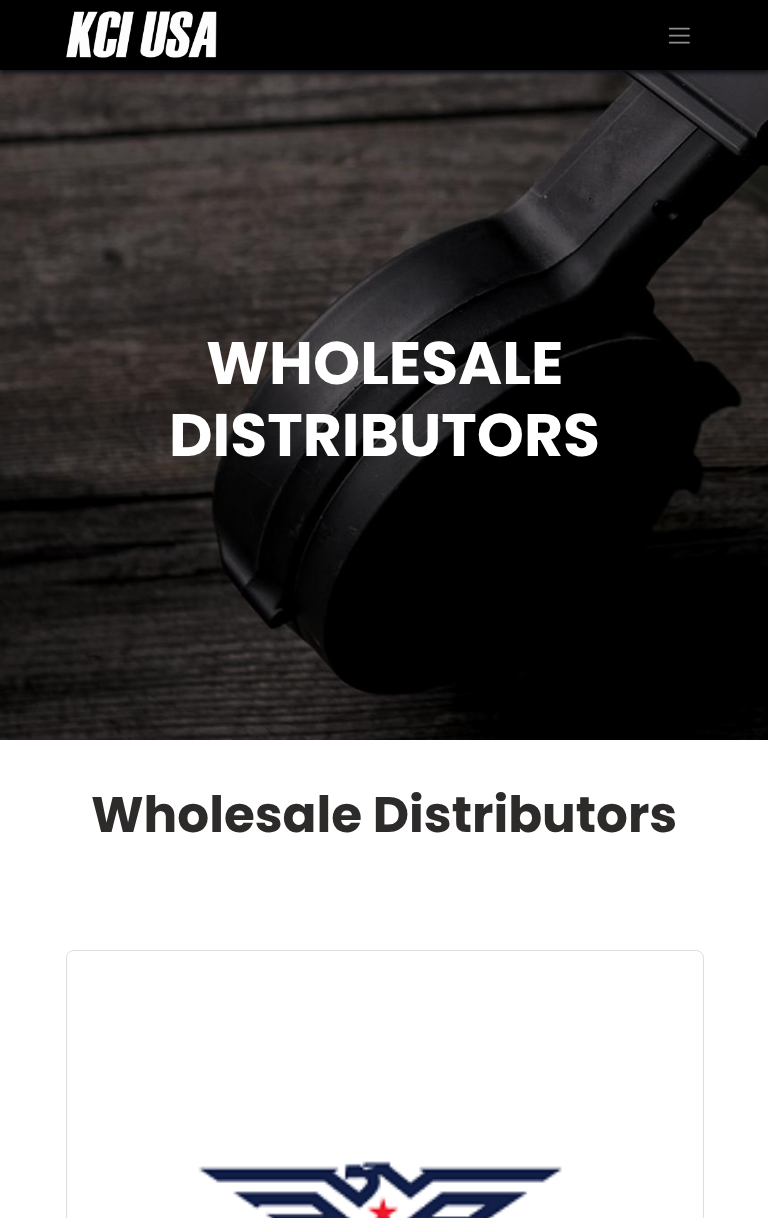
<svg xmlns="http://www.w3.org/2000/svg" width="768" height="1218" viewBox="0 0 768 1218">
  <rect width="100%" height="100%" fill="#fff"/>
  <image x="0" y="70" width="768" height="670" href="img/3.png"/>
  <path d="M0 3h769v70H0z" fill="#0d1014" filter="blur(2.5px)"/>
  <path d="M0 0h768v70H0z" fill="#000"/>
  <image x="66" y="11" width="151" height="47" href="img/1.png"/>
  <image x="668" y="27" width="22" height="17" href="img/2.png"/>
  <rect x="66.5" y="950.5" width="637" height="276" rx="7.5" fill="none" stroke="#dededf"/>
  <image x="198" y="1161" width="364" height="57" href="img/4.png"/>
  <g font-family="Poppins" font-size="60" font-weight="bold" fill="#fff">
    <text x="206" y="384">WHOLESALE</text>
    <text x="169" y="456">DISTRIBUTORS</text>
  </g>
  <text x="91" y="832" font-family="Poppins" font-size="50" font-weight="bold" fill="#2d2a2a">Wholesale Distributors</text>
</svg>
